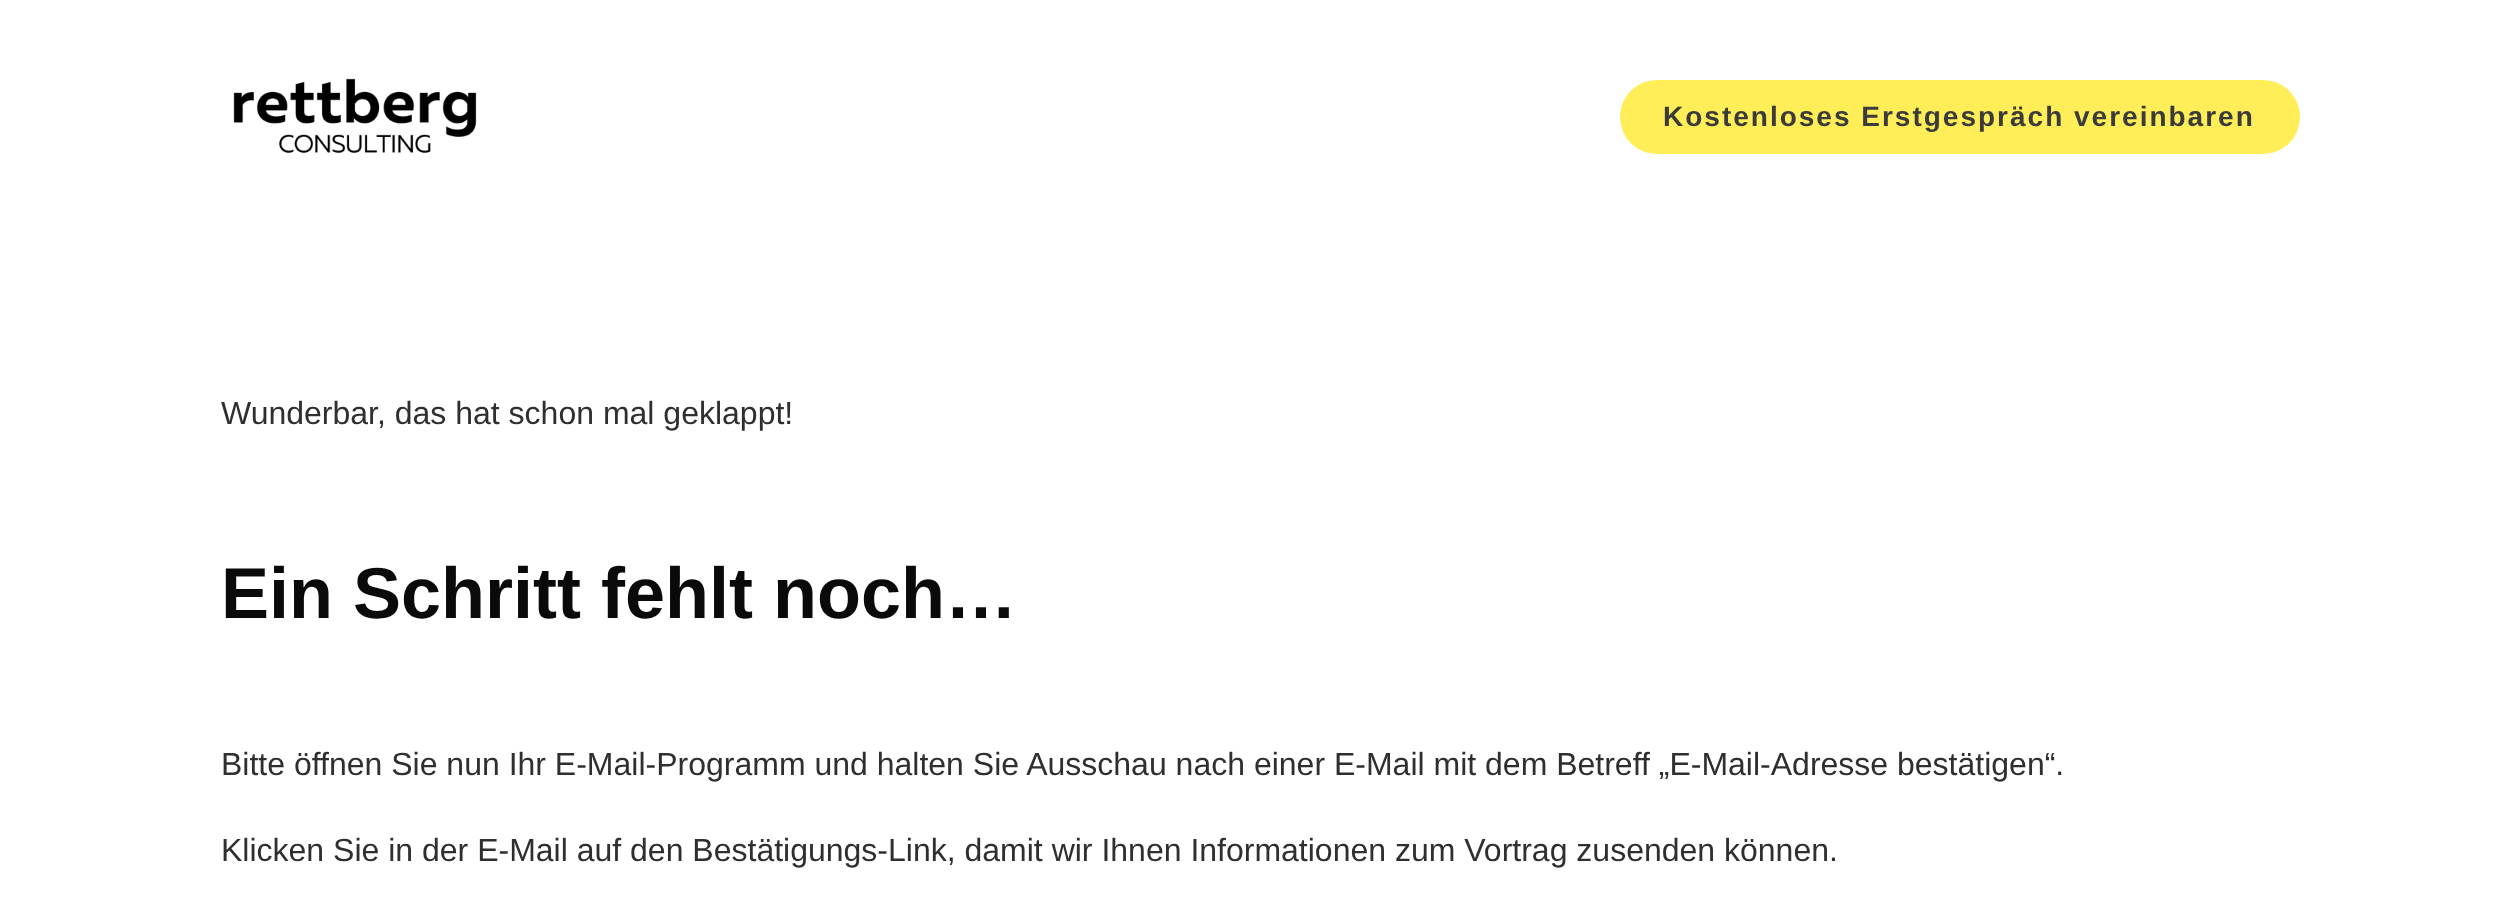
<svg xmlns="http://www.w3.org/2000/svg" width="2517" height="903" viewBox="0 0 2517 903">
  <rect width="100%" height="100%" fill="#fff"/>
  <image x="233" y="78" width="244" height="75" href="img/1.png"/>
  <rect x="1620" y="80" width="680" height="74" rx="37" fill="#ffee57"/>
  <text x="1663" y="126" font-family="Liberation Sans" font-size="28" font-weight="bold" letter-spacing="2" fill="#3b3b3b">Kostenloses Erstgespräch vereinbaren</text>
  <text x="221" y="424" font-family="Liberation Sans" font-size="32" fill="#2f2f2f">Wunderbar, das hat schon mal geklappt!</text>
  <text x="221" y="618" font-family="Liberation Sans" font-size="72" font-weight="bold" fill="#0a0a0a">Ein Schritt fehlt noch…</text>
  <g font-family="Liberation Sans" font-size="32" fill="#2f2f2f">
    <text x="221" y="775">Bitte öffnen Sie nun Ihr E-Mail-Programm und halten Sie Ausschau nach einer E-Mail mit dem Betreff „E-Mail-Adresse bestätigen“.</text>
    <text x="221" y="861">Klicken Sie in der E-Mail auf den Bestätigungs-Link, damit wir Ihnen Informationen zum Vortrag zusenden können.</text>
  </g>
</svg>
